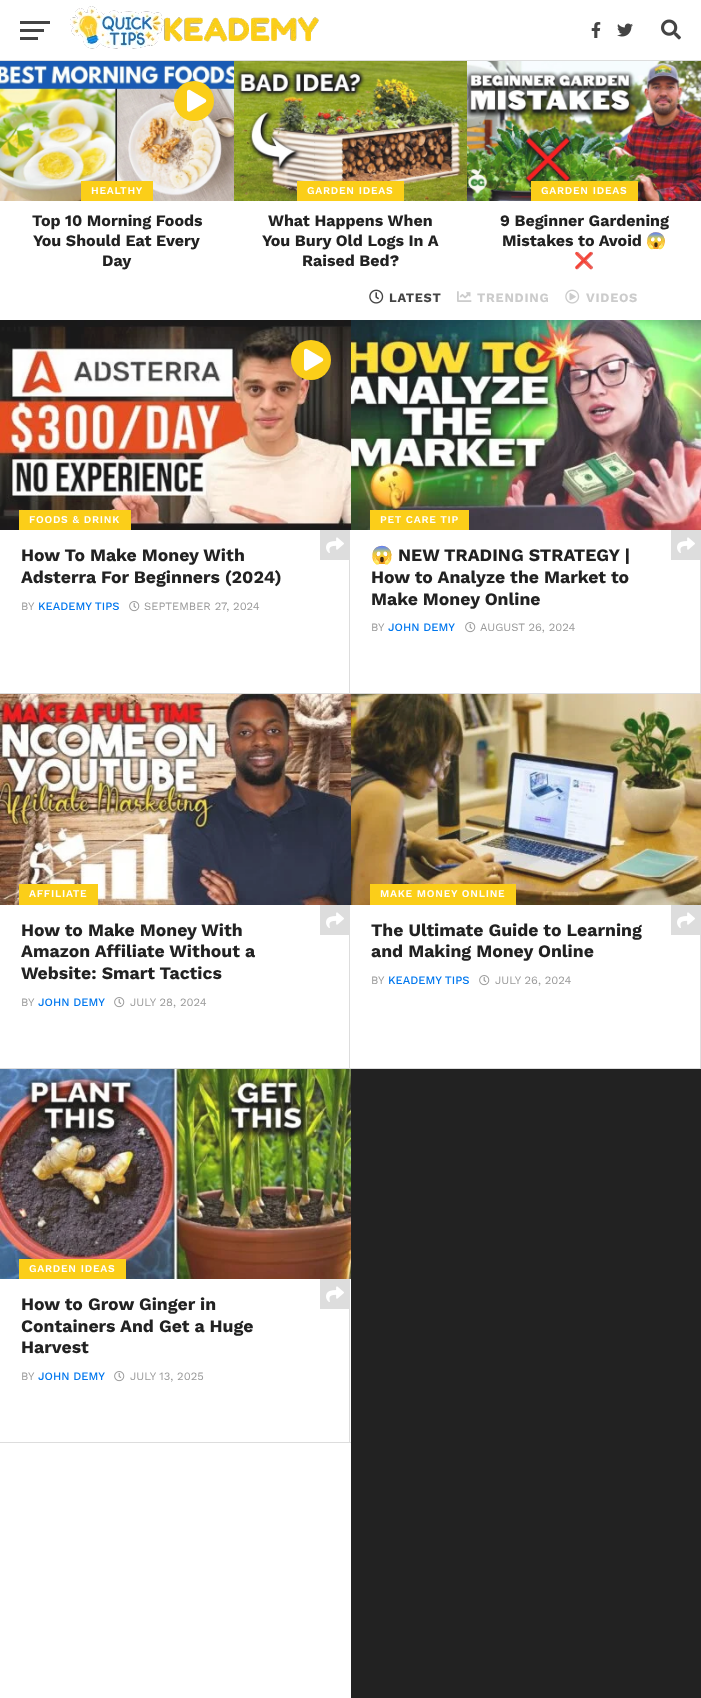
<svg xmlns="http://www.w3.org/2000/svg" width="701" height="1698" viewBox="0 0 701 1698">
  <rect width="100%" height="100%" fill="#fff"/>
  <path d="M20 21h30v3H20z" fill="#444"/>
  <path d="M20 29h24v3H20z" fill="#444"/>
  <path d="M20 37h18v3H20z" fill="#444"/>
  <image x="70" y="6" width="249" height="43" href="img/1.png"/>
  <image x="591" y="22" width="10" height="16" href="img/2.png"/>
  <image x="617" y="23" width="16" height="14" href="img/3.png"/>
  <image x="661" y="19" width="20" height="21" href="img/4.png"/>
  <path d="M0 60h701v1H0z" fill="#ddd"/>
  <image x="0" y="61" width="234" height="140" href="img/5.png"/>
  <circle cx="194" cy="101" r="20" fill="#fbce19"/>
  <image x="187" y="89" width="20" height="23" href="img/6.png"/>
  <path d="M81 181h72v20H81z" fill="#fbce19"/>
  <image x="234" y="61" width="233" height="140" href="img/7.png"/>
  <path d="M297 181h107v20H297z" fill="#fbce19"/>
  <image x="467" y="61" width="234" height="140" href="img/8.png"/>
  <path d="M531 181h107v20H531z" fill="#fbce19"/>
  <image x="369" y="289" width="15" height="15" href="img/9.png"/>
  <image x="457" y="291" width="15" height="11" href="img/10.png"/>
  <image x="565" y="289" width="15" height="15" href="img/11.png"/>
  <path d="M0 693h701v1H0z" fill="#ddd"/>
  <image x="0" y="320" width="351" height="210" href="img/12.png"/>
  <circle cx="311" cy="360" r="20" fill="#fbce19"/>
  <image x="304" y="348" width="20" height="23" href="img/6.png"/>
  <path d="M349 560h1v133H349z" fill="#ddd"/>
  <path d="M19 510h112v20H19z" fill="#fbce19"/>
  <path d="M320 530h30v30H320z" fill="#ddd"/>
  <image x="326" y="537" width="18" height="16" href="img/13.png"/>
  <image x="129" y="601" width="11" height="11" href="img/14.png"/>
  <image x="351" y="320" width="350" height="210" href="img/15.png"/>
  <path d="M700 560h1v133H700z" fill="#ddd"/>
  <path d="M370 510h99v20H370z" fill="#fbce19"/>
  <path d="M671 530h30v30H671z" fill="#ddd"/>
  <image x="677" y="537" width="18" height="16" href="img/13.png"/>
  <image x="465" y="622" width="11" height="11" href="img/14.png"/>
  <path d="M0 1068h701v1H0z" fill="#ddd"/>
  <image x="0" y="694" width="351" height="211" href="img/16.png"/>
  <path d="M349 935h1v133H349z" fill="#ddd"/>
  <path d="M19 884h79v21H19z" fill="#fbce19"/>
  <path d="M320 905h30v30H320z" fill="#ddd"/>
  <image x="326" y="912" width="18" height="16" href="img/13.png"/>
  <image x="114" y="997" width="11" height="11" href="img/14.png"/>
  <image x="351" y="694" width="350" height="211" href="img/17.png"/>
  <path d="M700 935h1v133H700z" fill="#ddd"/>
  <path d="M370 884h146v21H370z" fill="#fbce19"/>
  <path d="M671 905h30v30H671z" fill="#ddd"/>
  <image x="677" y="912" width="18" height="16" href="img/13.png"/>
  <image x="479" y="975" width="11" height="11" href="img/14.png"/>
  <path d="M0 1442h351v1H0z" fill="#ddd"/>
  <image x="0" y="1069" width="351" height="210" href="img/18.png"/>
  <path d="M349 1309h1v133H349z" fill="#ddd"/>
  <path d="M19 1259h107v20H19z" fill="#fbce19"/>
  <path d="M320 1279h30v30H320z" fill="#ddd"/>
  <image x="326" y="1286" width="18" height="16" href="img/13.png"/>
  <image x="114" y="1371" width="11" height="11" href="img/14.png"/>
  <path d="M351 1069h350v629H351z" fill="#222"/>
  <text x="91" y="194" font-family="Work Sans" font-size="10.4" font-weight="600" letter-spacing="0.75" fill="#fff">HEALTHY</text>
  <g font-family="Work Sans" font-size="16" font-weight="bold" fill="#222">
    <text x="32" y="226">Top 10 Morning Foods</text>
    <text x="33" y="246">You Should Eat Every</text>
    <text x="102" y="266">Day</text>
  </g>
  <text x="307" y="194" font-family="Work Sans" font-size="10.4" font-weight="600" letter-spacing="0.75" fill="#fff">GARDEN IDEAS</text>
  <g font-family="Work Sans" font-size="16" font-weight="bold" fill="#222">
    <text x="268" y="226">What Happens When</text>
    <text x="262" y="246">You Bury Old Logs In A</text>
    <text x="302" y="266">Raised Bed?</text>
  </g>
  <text x="541" y="194" font-family="Work Sans" font-size="10.4" font-weight="600" letter-spacing="0.75" fill="#fff">GARDEN IDEAS</text>
  <g font-family="Work Sans" font-size="16" font-weight="bold" fill="#222">
    <text x="500" y="226">9 Beginner Gardening</text>
    <text x="502" y="246">Mistakes to Avoid</text>
  </g>
  <g font-family="Noto Color Emoji" font-size="16" font-weight="bold" fill="#222">
    <text x="646" y="246">😱</text>
    <text x="574" y="266">❌</text>
  </g>
  <text x="389" y="302" font-family="Work Sans" font-size="12.75" font-weight="bold" letter-spacing="0.75" fill="#444">LATEST</text>
  <g font-family="Work Sans" font-size="12.75" font-weight="bold" letter-spacing="0.75" fill="#ccc">
    <text x="477" y="302">TRENDING</text>
    <text x="586" y="302">VIDEOS</text>
  </g>
  <text x="29" y="523" font-family="Work Sans" font-size="10.4" font-weight="600" letter-spacing="0.75" fill="#fff">FOODS &amp; DRINK</text>
  <g font-family="Work Sans" font-size="17.6" font-weight="bold" fill="#222">
    <text x="21" y="561">How To Make Money With</text>
    <text x="21" y="583">Adsterra For Beginners (2024)</text>
  </g>
  <text x="21" y="610" font-family="Work Sans" font-size="11.25" fill="#999">BY</text>
  <text x="38" y="610" font-family="Work Sans" font-size="11.25" font-weight="500" fill="#07e">KEADEMY TIPS</text>
  <text x="144" y="610" font-family="Work Sans" font-size="11.25" fill="#999">SEPTEMBER 27, 2024</text>
  <text x="380" y="523" font-family="Work Sans" font-size="10.4" font-weight="600" letter-spacing="0.75" fill="#fff">PET CARE TIP</text>
  <text x="371" y="561" font-family="Noto Color Emoji" font-size="17.6" font-weight="bold" fill="#222">😱</text>
  <g font-family="Work Sans" font-size="17.6" font-weight="bold" fill="#222">
    <text x="398" y="561">NEW TRADING STRATEGY |</text>
    <text x="371" y="583">How to Analyze the Market to</text>
    <text x="371" y="605">Make Money Online</text>
  </g>
  <text x="371" y="631" font-family="Work Sans" font-size="11.25" fill="#999">BY</text>
  <text x="388" y="631" font-family="Work Sans" font-size="11.25" font-weight="500" fill="#07e">JOHN DEMY</text>
  <text x="480" y="631" font-family="Work Sans" font-size="11.25" fill="#999">AUGUST 26, 2024</text>
  <text x="29" y="897" font-family="Work Sans" font-size="10.4" font-weight="600" letter-spacing="0.75" fill="#fff">AFFILIATE</text>
  <g font-family="Work Sans" font-size="17.6" font-weight="bold" fill="#222">
    <text x="21" y="936">How to Make Money With</text>
    <text x="21" y="957">Amazon Affiliate Without a</text>
    <text x="21" y="979">Website: Smart Tactics</text>
  </g>
  <text x="21" y="1006" font-family="Work Sans" font-size="11.25" fill="#999">BY</text>
  <text x="38" y="1006" font-family="Work Sans" font-size="11.25" font-weight="500" fill="#07e">JOHN DEMY</text>
  <text x="130" y="1006" font-family="Work Sans" font-size="11.25" fill="#999">JULY 28, 2024</text>
  <text x="380" y="897" font-family="Work Sans" font-size="10.4" font-weight="600" letter-spacing="0.75" fill="#fff">MAKE MONEY ONLINE</text>
  <g font-family="Work Sans" font-size="17.6" font-weight="bold" fill="#222">
    <text x="371" y="936">The Ultimate Guide to Learning</text>
    <text x="371" y="957">and Making Money Online</text>
  </g>
  <text x="371" y="984" font-family="Work Sans" font-size="11.25" fill="#999">BY</text>
  <text x="388" y="984" font-family="Work Sans" font-size="11.25" font-weight="500" fill="#07e">KEADEMY TIPS</text>
  <text x="495" y="984" font-family="Work Sans" font-size="11.25" fill="#999">JULY 26, 2024</text>
  <text x="29" y="1272" font-family="Work Sans" font-size="10.4" font-weight="600" letter-spacing="0.75" fill="#fff">GARDEN IDEAS</text>
  <g font-family="Work Sans" font-size="17.6" font-weight="bold" fill="#222">
    <text x="21" y="1310">How to Grow Ginger in</text>
    <text x="21" y="1332">Containers And Get a Huge</text>
    <text x="21" y="1353">Harvest</text>
  </g>
  <text x="21" y="1380" font-family="Work Sans" font-size="11.25" fill="#999">BY</text>
  <text x="38" y="1380" font-family="Work Sans" font-size="11.25" font-weight="500" fill="#07e">JOHN DEMY</text>
  <text x="130" y="1380" font-family="Work Sans" font-size="11.25" fill="#999">JULY 13, 2025</text>
</svg>
